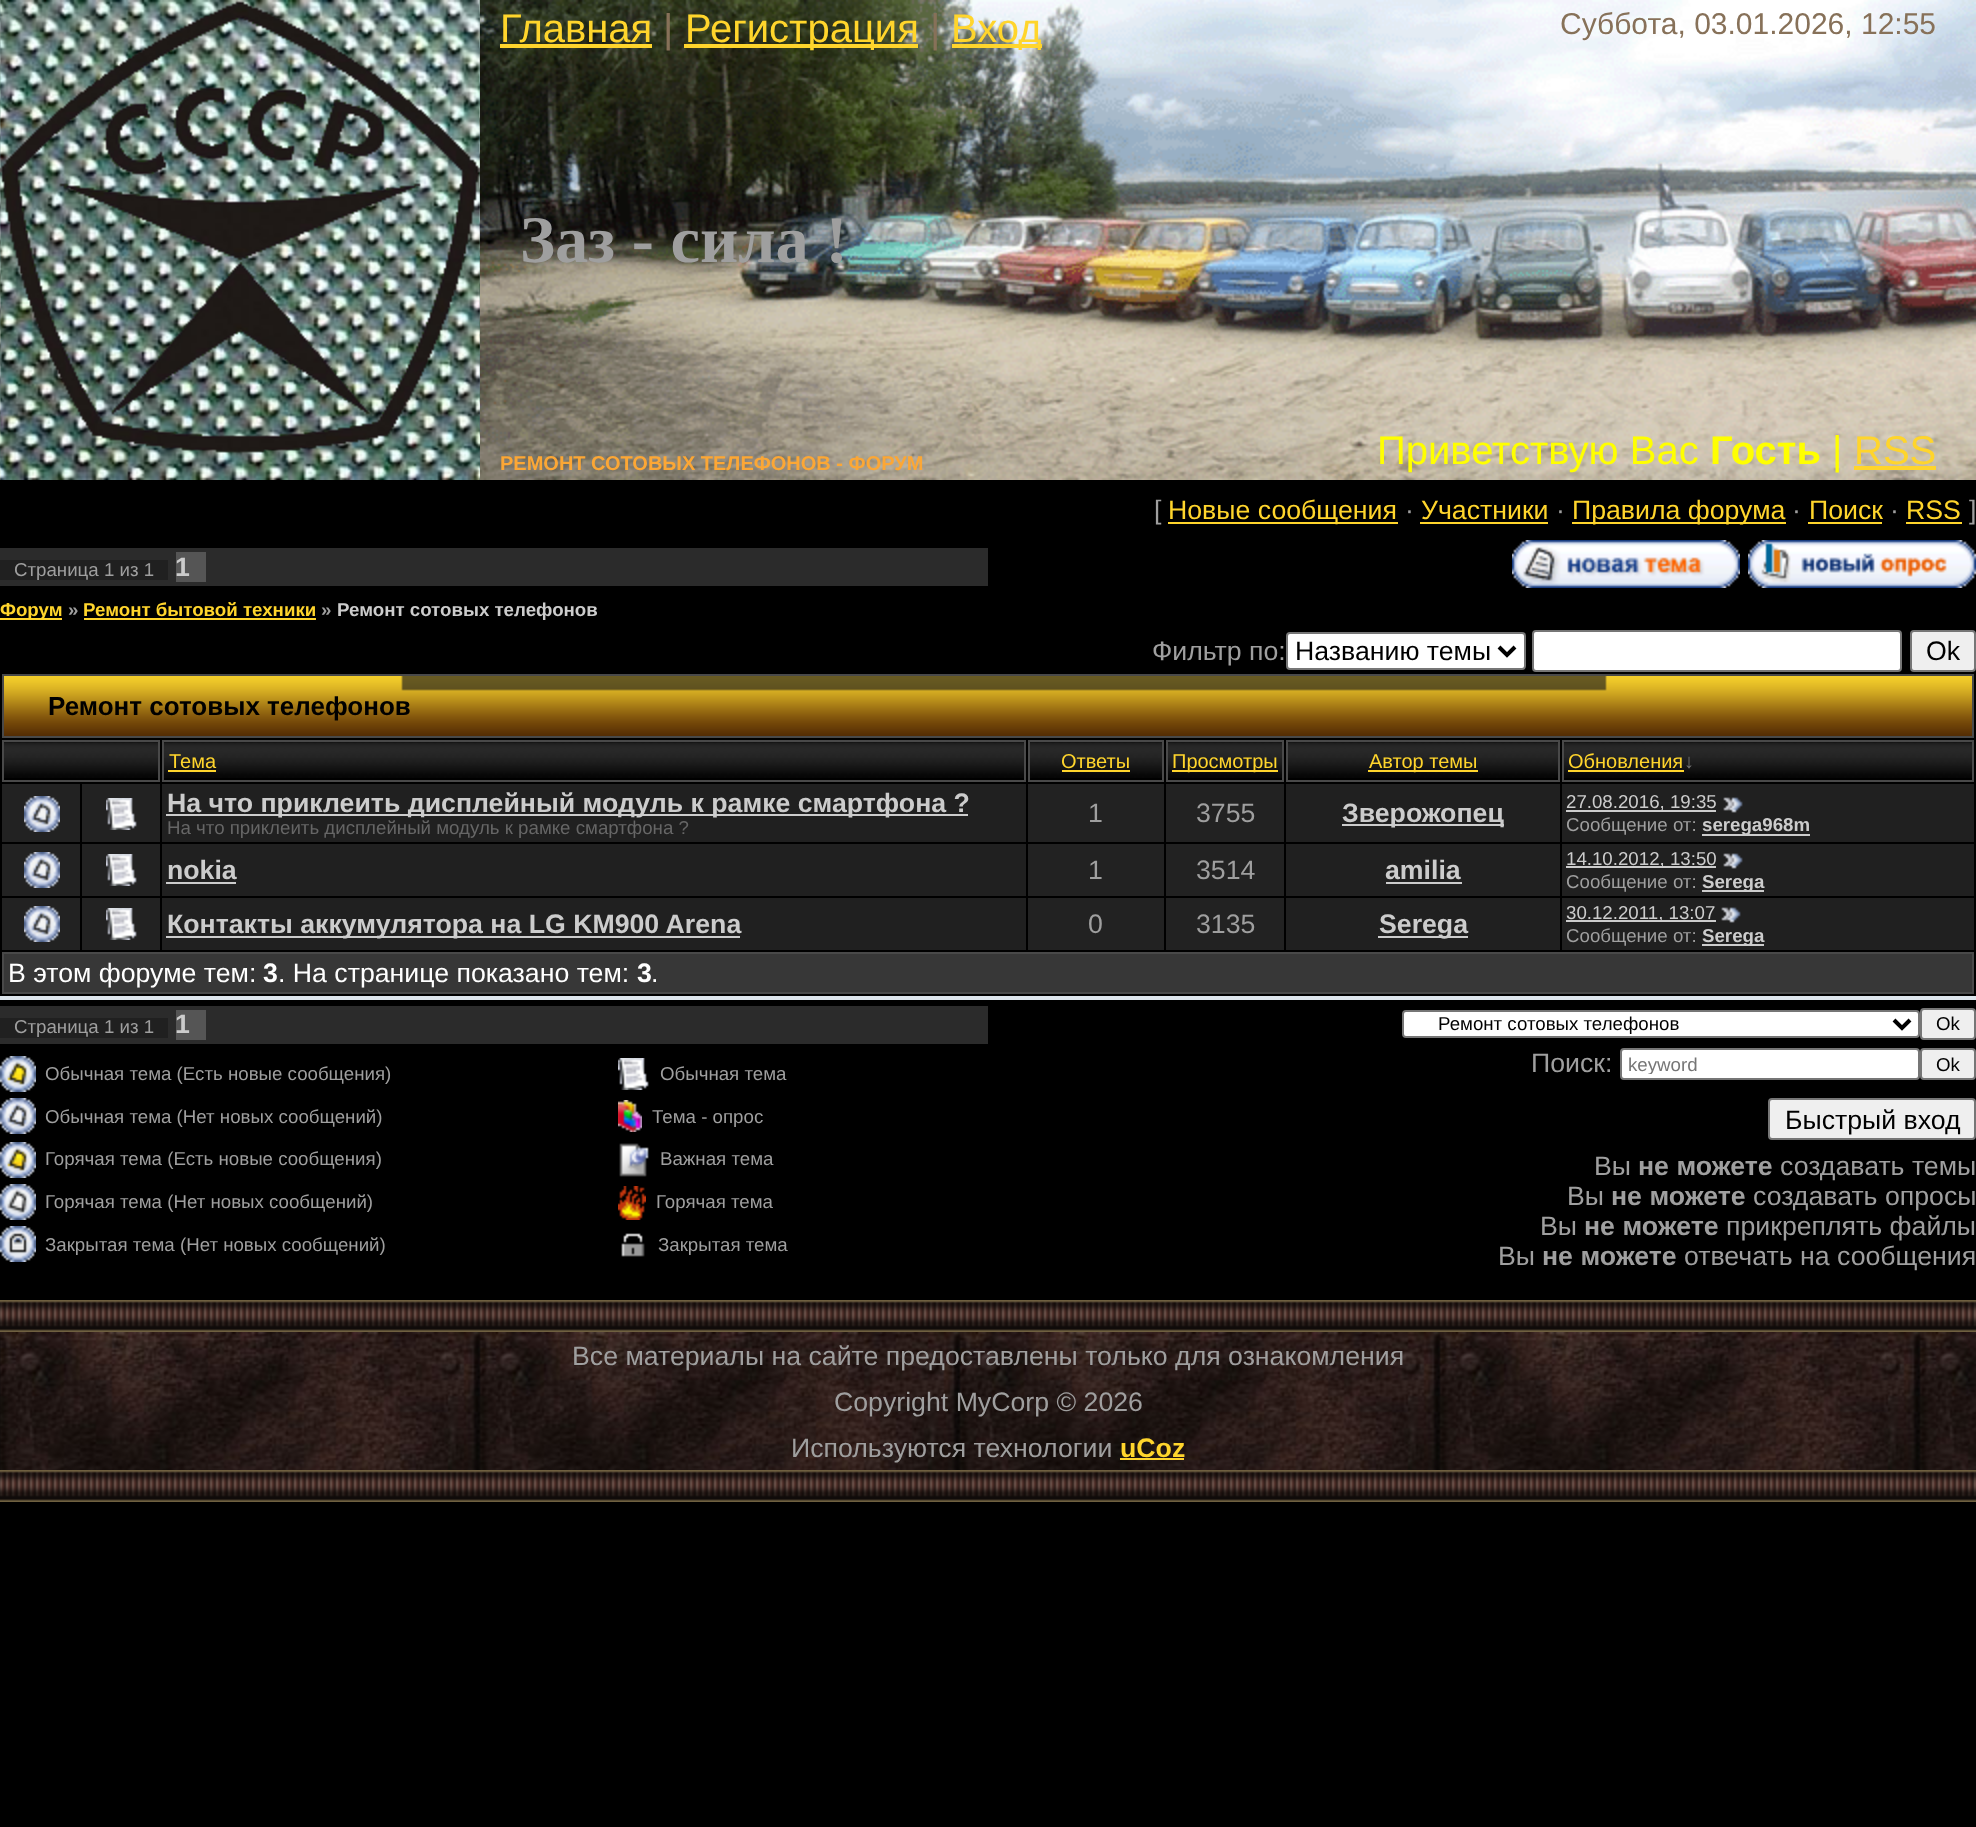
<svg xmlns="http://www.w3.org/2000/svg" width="1976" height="1827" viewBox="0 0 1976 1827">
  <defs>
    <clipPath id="clip1"><path d="M1628 1054h284v20H1628z"/></clipPath>
  </defs>
  <rect width="100%" height="100%" fill="#000"/>
  <image x="0" y="0" width="480" height="480" href="img/1.png"/>
  <image x="0" y="1" width="480" height="452" href="img/2.png"/>
  <image x="480" y="0" width="1496" height="480" href="img/3.png"/>
  <path d="M500 44h152v4H500z" fill="#ffd52c"/>
  <path d="M684 44h234v4H684z" fill="#ffd52c"/>
  <path d="M952 44h90v4H952z" fill="#ffd52c"/>
  <path d="M1854 466h82v4H1854z" fill="#ffd52c"/>
  <path d="M1168 522h230v2H1168z" fill="#ffd52c"/>
  <path d="M1420 522h128v2H1420z" fill="#ffd52c"/>
  <path d="M1572 522h214v2H1572z" fill="#ffd52c"/>
  <path d="M1808 522h74v2H1808z" fill="#ffd52c"/>
  <path d="M1906 522h56v2H1906z" fill="#ffd52c"/>
  <path d="M0 548h988v38H0z" fill="#2b2b2b"/>
  <path d="M0 560h168v20H0z" fill="#202020"/>
  <path d="M176 552h30v30H176z" fill="#555"/>
  <image x="1512" y="540" width="228" height="48" href="img/4.png"/>
  <image x="1748" y="540" width="228" height="48" href="img/5.png"/>
  <path d="M0 618h62v2H0z" fill="#ffd52c"/>
  <path d="M84 618h232v2H84z" fill="#ffd52c"/>
  <rect x="1287" y="633" width="238" height="36" rx="3" fill="#fff" stroke="#767676" stroke-width="2"/>
  <path d="M1499 647L1507 655L1515 647" fill="none" stroke="#000" stroke-width="4"/>
  <rect x="1533" y="631" width="368" height="40" rx="3" fill="#fff" stroke="#767676" stroke-width="2"/>
  <rect x="1911" y="631" width="64" height="40" rx="3" fill="#efefef" stroke="#767676" stroke-width="2"/>
  <path d="M0 996h1976v4H0z" fill="#dde5ec"/>
  <image x="4" y="676" width="1968" height="60" href="img/6.png"/>
  <path d="M3 675h1970v62H3z" fill="none" stroke="#494949" stroke-width="2"/>
  <image x="4" y="742" width="154" height="36" href="img/7.png"/>
  <path d="M3 741h156v40H3z" fill="none" stroke="#494949" stroke-width="2"/>
  <image x="164" y="742" width="860" height="36" href="img/8.png"/>
  <path d="M163 741h862v40H163z" fill="none" stroke="#494949" stroke-width="2"/>
  <path d="M168 770h48v2H168z" fill="#ffd52c"/>
  <image x="1030" y="742" width="132" height="36" href="img/9.png"/>
  <path d="M1029 741h134v40H1029z" fill="none" stroke="#494949" stroke-width="2"/>
  <path d="M1062 770h68v2H1062z" fill="#ffd52c"/>
  <image x="1168" y="742" width="114" height="36" href="img/10.png"/>
  <path d="M1167 741h116v40H1167z" fill="none" stroke="#494949" stroke-width="2"/>
  <path d="M1172 770h106v2H1172z" fill="#ffd52c"/>
  <image x="1288" y="742" width="270" height="36" href="img/11.png"/>
  <path d="M1287 741h272v40H1287z" fill="none" stroke="#494949" stroke-width="2"/>
  <path d="M1368 770h110v2H1368z" fill="#ffd52c"/>
  <image x="1564" y="742" width="408" height="36" href="img/12.png"/>
  <path d="M1563 741h410v40H1563z" fill="none" stroke="#494949" stroke-width="2"/>
  <path d="M1568 770h116v2H1568z" fill="#ffd52c"/>
  <path d="M2 784h78v58H2z" fill="#222"/>
  <image x="24" y="796" width="36" height="36" href="img/13.png"/>
  <path d="M82 784h78v58H82z" fill="#222"/>
  <image x="106" y="798" width="31" height="32" href="img/14.png"/>
  <path d="M162 784h864v58H162z" fill="#202020"/>
  <path d="M166 814h802v2H166z" fill="#ccc"/>
  <path d="M1028 784h136v58H1028z" fill="#222"/>
  <path d="M1166 784h118v58H1166z" fill="#222"/>
  <path d="M1286 784h274v58H1286z" fill="#202020"/>
  <path d="M1342 824h162v2H1342z" fill="#ccc"/>
  <path d="M1562 784h412v58H1562z" fill="#202020"/>
  <path d="M1566 810h150v2H1566z" fill="#ccc"/>
  <image x="1723" y="797" width="20" height="16" href="img/15.png"/>
  <path d="M1702 834h108v2H1702z" fill="#ccc"/>
  <path d="M2 844h78v52H2z" fill="#222"/>
  <image x="24" y="852" width="36" height="36" href="img/13.png"/>
  <path d="M82 844h78v52H82z" fill="#222"/>
  <image x="106" y="854" width="31" height="32" href="img/14.png"/>
  <path d="M162 844h864v52H162z" fill="#202020"/>
  <path d="M166 882h70v2H166z" fill="#ccc"/>
  <path d="M1028 844h136v52H1028z" fill="#222"/>
  <path d="M1166 844h118v52H1166z" fill="#222"/>
  <path d="M1286 844h274v52H1286z" fill="#202020"/>
  <path d="M1386 882h76v2H1386z" fill="#ccc"/>
  <path d="M1562 844h412v52H1562z" fill="#202020"/>
  <path d="M1566 866h150v2H1566z" fill="#ccc"/>
  <image x="1723" y="853" width="20" height="16" href="img/15.png"/>
  <path d="M1702 890h62v2H1702z" fill="#ccc"/>
  <path d="M2 898h78v52H2z" fill="#222"/>
  <image x="24" y="906" width="36" height="36" href="img/13.png"/>
  <path d="M82 898h78v52H82z" fill="#222"/>
  <image x="106" y="908" width="31" height="32" href="img/14.png"/>
  <path d="M162 898h864v52H162z" fill="#202020"/>
  <path d="M166 936h574v2H166z" fill="#ccc"/>
  <path d="M1028 898h136v52H1028z" fill="#222"/>
  <path d="M1166 898h118v52H1166z" fill="#222"/>
  <path d="M1286 898h274v52H1286z" fill="#202020"/>
  <path d="M1378 936h90v2H1378z" fill="#ccc"/>
  <path d="M1562 898h412v52H1562z" fill="#202020"/>
  <path d="M1566 920h150v2H1566z" fill="#ccc"/>
  <image x="1721" y="907" width="20" height="16" href="img/15.png"/>
  <path d="M1702 944h62v2H1702z" fill="#ccc"/>
  <path d="M3 953h1970v40H3z" fill="#373737" stroke="#494949" stroke-width="2"/>
  <path d="M0 1006h988v38H0z" fill="#2b2b2b"/>
  <path d="M0 1018h168v20H0z" fill="#202020"/>
  <path d="M176 1010h30v30H176z" fill="#555"/>
  <rect x="1403" y="1011" width="516" height="26" rx="3" fill="#fff" stroke="#767676" stroke-width="2"/>
  <path d="M1894 1020L1902 1028L1910 1020" fill="none" stroke="#000" stroke-width="4"/>
  <rect x="1921" y="1009" width="54" height="30" rx="3" fill="#efefef" stroke="#767676" stroke-width="2"/>
  <image x="0" y="1056" width="36" height="36" href="img/16.png"/>
  <image x="618" y="1058" width="31" height="32" href="img/17.png"/>
  <image x="0" y="1098" width="36" height="36" href="img/18.png"/>
  <image x="618" y="1100" width="24" height="32" href="img/19.png"/>
  <image x="0" y="1142" width="36" height="36" href="img/20.png"/>
  <image x="619" y="1143" width="30" height="34" href="img/21.png"/>
  <image x="0" y="1184" width="36" height="36" href="img/22.png"/>
  <image x="618" y="1186" width="28" height="34" href="img/23.png"/>
  <image x="0" y="1226" width="36" height="36" href="img/24.png"/>
  <image x="621" y="1233" width="24" height="24" href="img/25.png"/>
  <rect x="1621" y="1049" width="298" height="30" rx="3" fill="#fff" stroke="#767676" stroke-width="2"/>
  <rect x="1921" y="1049" width="54" height="30" rx="3" fill="#efefef" stroke="#767676" stroke-width="2"/>
  <rect x="1769" y="1099" width="206" height="40" rx="3" fill="#efefef" stroke="#767676" stroke-width="2"/>
  <image x="0" y="1300" width="1976" height="32" href="img/26.png"/>
  <image x="0" y="1332" width="1976" height="138" href="img/27.png"/>
  <path d="M1120 1458h64v2H1120z" fill="#ffd52c"/>
  <image x="0" y="1470" width="1976" height="32" href="img/26.png"/>
  <text x="500" y="42" font-family="Liberation Sans" font-size="40" fill="#ffd52c">Главная</text>
  <text x="663" y="42" font-family="Liberation Sans" font-size="40" fill="#877159">|</text>
  <text x="685" y="42" font-family="Liberation Sans" font-size="40" fill="#ffd52c">Регистрация</text>
  <text x="930" y="42" font-family="Liberation Sans" font-size="40" fill="#877159">|</text>
  <text x="951" y="42" font-family="Liberation Sans" font-size="40" fill="#ffd52c">Вход</text>
  <text x="1560" y="34" font-family="Liberation Sans" font-size="30" fill="#877159">Суббота, 03.01.2026, 12:55</text>
  <text x="520" y="262" font-family="Liberation Serif" font-size="66.5" font-weight="bold" fill="#9f9f9f">Заз - сила !</text>
  <text x="500" y="470" font-family="Liberation Sans" font-size="20" font-weight="bold" fill="#fca735">РЕМОНТ СОТОВЫХ ТЕЛЕФОНОВ - ФОРУМ</text>
  <text x="1377" y="464" font-family="Liberation Sans" font-size="40" fill="#ff0">Приветствую Вас</text>
  <text x="1710" y="464" font-family="Liberation Sans" font-size="40" font-weight="bold" fill="#ff0">Гость</text>
  <text x="1832" y="464" font-family="Liberation Sans" font-size="40" fill="#ff0">|</text>
  <text x="1854" y="464" font-family="Liberation Sans" font-size="40" fill="#ffd52c">RSS</text>
  <text x="1154" y="519" font-family="Liberation Sans" font-size="26.7" fill="#9f9f9f">[</text>
  <text x="1168" y="519" font-family="Liberation Sans" font-size="26.7" fill="#ffd52c">Новые сообщения</text>
  <text x="1405" y="519" font-family="Liberation Sans" font-size="26.7" fill="#9f9f9f">·</text>
  <text x="1421" y="519" font-family="Liberation Sans" font-size="26.7" fill="#ffd52c">Участники</text>
  <text x="1556" y="519" font-family="Liberation Sans" font-size="26.7" fill="#9f9f9f">·</text>
  <text x="1572" y="519" font-family="Liberation Sans" font-size="26.7" fill="#ffd52c">Правила форума</text>
  <text x="1792" y="519" font-family="Liberation Sans" font-size="26.7" fill="#9f9f9f">·</text>
  <text x="1809" y="519" font-family="Liberation Sans" font-size="26.7" fill="#ffd52c">Поиск</text>
  <text x="1890" y="519" font-family="Liberation Sans" font-size="26.7" fill="#9f9f9f">·</text>
  <text x="1906" y="519" font-family="Liberation Sans" font-size="26.7" fill="#ffd52c">RSS</text>
  <text x="1969" y="519" font-family="Liberation Sans" font-size="26.7" fill="#9f9f9f">]</text>
  <text x="14" y="576" font-family="Liberation Sans" font-size="18.7" fill="#9f9f9f">Страница 1 из 1</text>
  <text x="175" y="576" font-family="Liberation Sans" font-size="26.7" font-weight="bold" fill="#ccc">1</text>
  <text x="0" y="616" font-family="Liberation Sans" font-size="18.7" font-weight="bold" fill="#ffd52c">Форум</text>
  <text x="68" y="616" font-family="Liberation Sans" font-size="18.7" font-weight="bold" fill="#9f9f9f">»</text>
  <text x="83" y="616" font-family="Liberation Sans" font-size="18.7" font-weight="bold" fill="#ffd52c">Ремонт бытовой техники</text>
  <text x="321" y="616" font-family="Liberation Sans" font-size="18.7" font-weight="bold" fill="#9f9f9f">»</text>
  <text x="337" y="616" font-family="Liberation Sans" font-size="18.7" font-weight="bold" fill="#ccc">Ремонт сотовых телефонов</text>
  <text x="1152" y="660" font-family="Liberation Sans" font-size="26.7" fill="#9f9f9f">Фильтр по:</text>
  <g font-family="Liberation Sans" font-size="26.7" fill="#000">
    <text x="1295" y="660">Названию темы</text>
    <text x="1926" y="660">Ok</text>
  </g>
  <text x="48" y="715" font-family="Liberation Sans" font-size="26" font-weight="bold" fill="#000">Ремонт сотовых телефонов</text>
  <g font-family="Liberation Sans" font-size="20" fill="#ffd52c">
    <text x="169" y="768">Тема</text>
    <text x="1061" y="768">Ответы</text>
    <text x="1172" y="768">Просмотры</text>
    <text x="1369" y="768">Автор темы</text>
    <text x="1568" y="768">Обновления</text>
  </g>
  <text x="1684" y="768" font-family="Liberation Sans" font-size="20" fill="#767676">↓</text>
  <text x="167" y="812" font-family="Liberation Sans" font-size="26.7" font-weight="bold" fill="#ccc">На что приклеить дисплейный модуль к рамке смартфона ?</text>
  <text x="167" y="834" font-family="Liberation Sans" font-size="18.7" fill="#666">На что приклеить дисплейный модуль к рамке смартфона ?</text>
  <g font-family="Liberation Sans" font-size="26.7" fill="#9f9f9f">
    <text x="1088" y="822">1</text>
    <text x="1196" y="822">3755</text>
  </g>
  <text x="1342" y="822" font-family="Liberation Sans" font-size="26.7" font-weight="bold" fill="#ccc">Зверожопец</text>
  <text x="1566" y="808" font-family="Liberation Sans" font-size="18.7" fill="#ccc">27.08.2016, 19:35</text>
  <text x="1566" y="831" font-family="Liberation Sans" font-size="18.7" fill="#9f9f9f">Сообщение от:</text>
  <text x="1702" y="831" font-family="Liberation Sans" font-size="18.7" font-weight="bold" fill="#ccc">serega968m</text>
  <text x="167" y="879" font-family="Liberation Sans" font-size="26.7" font-weight="bold" fill="#ccc">nokia</text>
  <g font-family="Liberation Sans" font-size="26.7" fill="#9f9f9f">
    <text x="1088" y="879">1</text>
    <text x="1196" y="879">3514</text>
  </g>
  <text x="1385" y="879" font-family="Liberation Sans" font-size="26.7" font-weight="bold" fill="#ccc">amilia</text>
  <text x="1566" y="865" font-family="Liberation Sans" font-size="18.7" fill="#ccc">14.10.2012, 13:50</text>
  <text x="1566" y="888" font-family="Liberation Sans" font-size="18.7" fill="#9f9f9f">Сообщение от:</text>
  <text x="1702" y="888" font-family="Liberation Sans" font-size="18.7" font-weight="bold" fill="#ccc">Serega</text>
  <text x="167" y="933" font-family="Liberation Sans" font-size="26.7" font-weight="bold" fill="#ccc">Контакты аккумулятора на LG KM900 Arena</text>
  <g font-family="Liberation Sans" font-size="26.7" fill="#9f9f9f">
    <text x="1088" y="933">0</text>
    <text x="1196" y="933">3135</text>
  </g>
  <text x="1379" y="933" font-family="Liberation Sans" font-size="26.7" font-weight="bold" fill="#ccc">Serega</text>
  <text x="1566" y="919" font-family="Liberation Sans" font-size="18.7" fill="#ccc">30.12.2011, 13:07</text>
  <text x="1566" y="942" font-family="Liberation Sans" font-size="18.7" fill="#9f9f9f">Сообщение от:</text>
  <text x="1702" y="942" font-family="Liberation Sans" font-size="18.7" font-weight="bold" fill="#ccc">Serega</text>
  <text x="8" y="982" font-family="Liberation Sans" font-size="26.7" fill="#fff">В этом форуме тем:</text>
  <text x="263" y="982" font-family="Liberation Sans" font-size="26.7" font-weight="bold" fill="#fff">3</text>
  <text x="278" y="982" font-family="Liberation Sans" font-size="26.7" fill="#fff">. На странице показано тем:</text>
  <text x="637" y="982" font-family="Liberation Sans" font-size="26.7" font-weight="bold" fill="#fff">3</text>
  <text x="651" y="982" font-family="Liberation Sans" font-size="26.7" fill="#fff">.</text>
  <text x="14" y="1033" font-family="Liberation Sans" font-size="18.7" fill="#9f9f9f">Страница 1 из 1</text>
  <text x="175" y="1033" font-family="Liberation Sans" font-size="26.7" font-weight="bold" fill="#ccc">1</text>
  <g font-family="Liberation Sans" font-size="18.7" fill="#000">
    <text x="1438" y="1030">Ремонт сотовых телефонов</text>
    <text x="1936" y="1030">Ok</text>
  </g>
  <g font-family="Liberation Sans" font-size="18.7" fill="#9f9f9f">
    <text x="45" y="1080">Обычная тема (Есть новые сообщения)</text>
    <text x="660" y="1080">Обычная тема</text>
    <text x="45" y="1123">Обычная тема (Нет новых сообщений)</text>
    <text x="652" y="1123">Тема - опрос</text>
    <text x="45" y="1165">Горячая тема (Есть новые сообщения)</text>
    <text x="660" y="1165">Важная тема</text>
    <text x="45" y="1208">Горячая тема (Нет новых сообщений)</text>
    <text x="656" y="1208">Горячая тема</text>
    <text x="45" y="1251">Закрытая тема (Нет новых сообщений)</text>
    <text x="658" y="1251">Закрытая тема</text>
  </g>
  <text x="1531" y="1072" font-family="Liberation Sans" font-size="26.7" fill="#9f9f9f">Поиск:</text>
  <g clip-path="url(#clip1)">
    <text x="1628" y="1071" font-family="Liberation Sans" font-size="18.7" fill="#767676">keyword</text>
  </g>
  <text x="1936" y="1071" font-family="Liberation Sans" font-size="18.7" fill="#000">Ok</text>
  <text x="1785" y="1129" font-family="Liberation Sans" font-size="26.7" fill="#000">Быстрый вход</text>
  <text x="1594" y="1175" font-family="Liberation Sans" font-size="26.7" fill="#9f9f9f">Вы</text>
  <text x="1638" y="1175" font-family="Liberation Sans" font-size="26.7" font-weight="bold" fill="#9f9f9f">не можете</text>
  <g font-family="Liberation Sans" font-size="26.7" fill="#9f9f9f">
    <text x="1780" y="1175">создавать темы</text>
    <text x="1567" y="1205">Вы</text>
  </g>
  <text x="1611" y="1205" font-family="Liberation Sans" font-size="26.7" font-weight="bold" fill="#9f9f9f">не можете</text>
  <g font-family="Liberation Sans" font-size="26.7" fill="#9f9f9f">
    <text x="1753" y="1205">создавать опросы</text>
    <text x="1540" y="1235">Вы</text>
  </g>
  <text x="1584" y="1235" font-family="Liberation Sans" font-size="26.7" font-weight="bold" fill="#9f9f9f">не можете</text>
  <g font-family="Liberation Sans" font-size="26.7" fill="#9f9f9f">
    <text x="1726" y="1235">прикреплять файлы</text>
    <text x="1498" y="1265">Вы</text>
  </g>
  <text x="1542" y="1265" font-family="Liberation Sans" font-size="26.7" font-weight="bold" fill="#9f9f9f">не можете</text>
  <g font-family="Liberation Sans" font-size="26.7" fill="#9f9f9f">
    <text x="1684" y="1265">отвечать на сообщения</text>
    <text x="572" y="1365">Все материалы на сайте предоставлены только для ознакомления</text>
    <text x="834" y="1411">Copyright MyCorp © 2026</text>
    <text x="791" y="1457">Используются технологии</text>
  </g>
  <text x="1120" y="1457" font-family="Liberation Sans" font-size="26.7" font-weight="bold" fill="#ffd52c">uCoz</text>
</svg>
